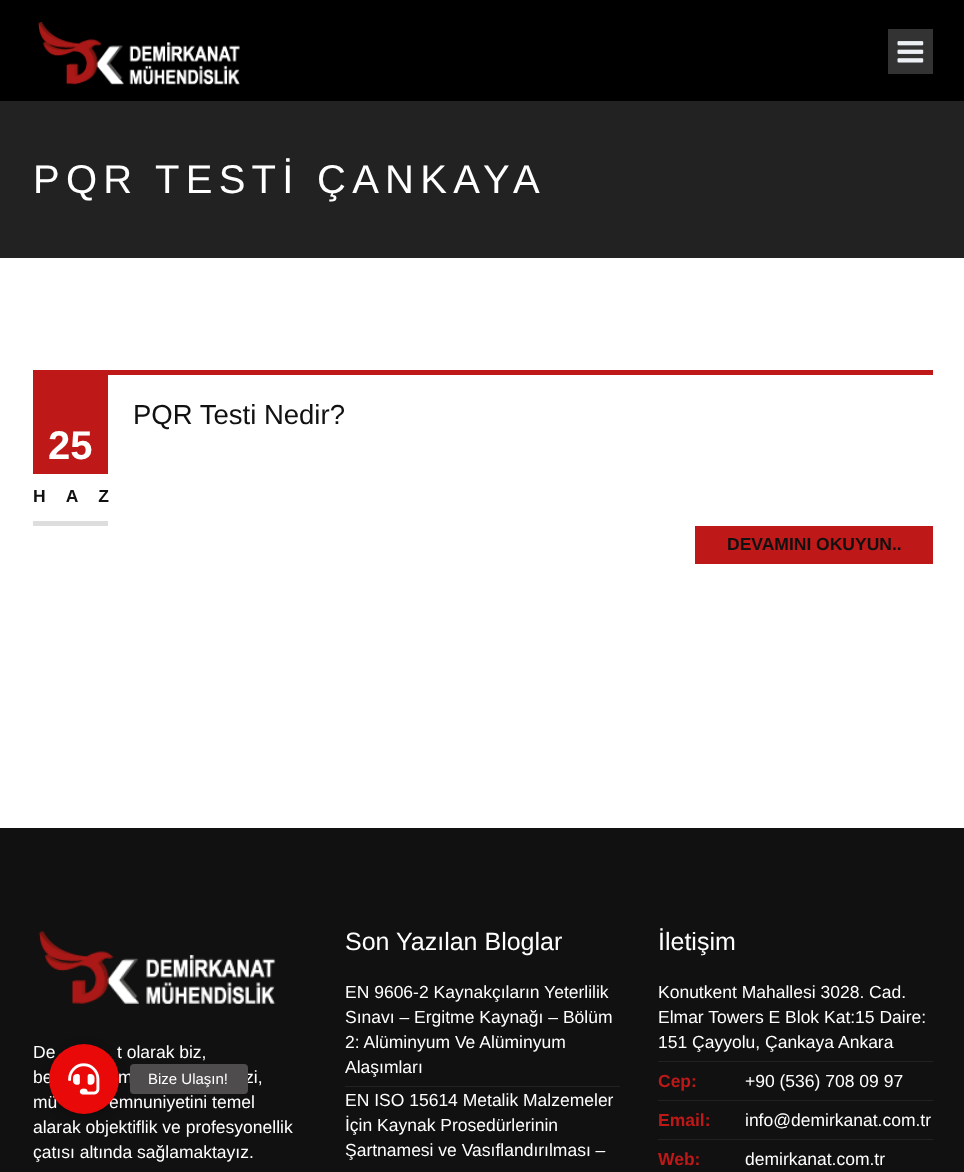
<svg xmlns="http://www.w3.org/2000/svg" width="964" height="1172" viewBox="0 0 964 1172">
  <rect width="100%" height="100%" fill="#fff"/>
  <path d="M0 0h964v101H0z" fill="#000"/>
  <image x="37" y="21" width="203" height="64" href="img/1.png"/>
  <path d="M888 29h45v45H888z" fill="#333"/>
  <image x="897" y="41" width="27" height="22" href="img/2.png"/>
  <path d="M0 101h964v157H0z" fill="#222"/>
  <path d="M33 370h900v5H33z" fill="#bf1818"/>
  <path d="M33 375h75v99H33z" fill="#bf1818"/>
  <path d="M33 521h75v5H33z" fill="#ddd"/>
  <path d="M695 526h238v38H695z" fill="#bf1818"/>
  <path d="M0 828h964v344H0z" fill="#111"/>
  <image x="38" y="931" width="238" height="73" href="img/3.png"/>
  <path d="M345 1086h275v1H345z" fill="#222"/>
  <path d="M658 1061h275v1H658z" fill="#222"/>
  <path d="M658 1100h275v1H658z" fill="#222"/>
  <path d="M658 1139h275v1H658z" fill="#222"/>
  <rect x="48" y="1045" width="72" height="73" rx="36" fill="#00000033" filter="blur(4px)"/>
  <text x="33" y="193" font-family="Liberation Sans" font-size="40" letter-spacing="6.25" fill="#fff">PQR TESTİ ÇANKAYA</text>
  <text x="133" y="424" font-family="Liberation Sans" font-size="27.5" fill="#111">PQR Testi Nedir?</text>
  <text x="48" y="459" font-family="Liberation Sans" font-size="40" font-weight="bold" fill="#fff">25</text>
  <text x="33" y="502" font-family="Liberation Sans" font-size="17.5" font-weight="bold" letter-spacing="20" fill="#111">HAZ</text>
  <text x="727" y="550" font-family="Liberation Sans" font-size="17.5" font-weight="bold" fill="#111">DEVAMINI OKUYUN..</text>
  <g font-family="Liberation Sans" font-size="17.5" fill="#fff">
    <text x="33" y="1058">De</text>
    <text x="117" y="1058">t olarak biz,</text>
    <text x="33" y="1083">be</text>
    <text x="118" y="1083">m</text>
    <text x="245" y="1083">zi,</text>
    <text x="33" y="1108">mü</text>
    <text x="109" y="1108">emnuniyetini temel</text>
    <text x="33" y="1133">alarak objektiflik ve profesyonellik</text>
    <text x="33" y="1158">çatısı altında sağlamaktayız.</text>
  </g>
  <text x="345" y="950" font-family="Liberation Sans" font-size="25" fill="#fff">Son Yazılan Bloglar</text>
  <g font-family="Liberation Sans" font-size="17.5" fill="#fff">
    <text x="345" y="998">EN 9606-2 Kaynakçıların Yeterlilik</text>
    <text x="345" y="1023">Sınavı – Ergitme Kaynağı – Bölüm</text>
    <text x="345" y="1048">2: Alüminyum Ve Alüminyum</text>
    <text x="345" y="1073">Alaşımları</text>
    <text x="345" y="1106">EN ISO 15614 Metalik Malzemeler</text>
    <text x="345" y="1131">İçin Kaynak Prosedürlerinin</text>
    <text x="345" y="1156">Şartnamesi ve Vasıflandırılması –</text>
  </g>
  <text x="658" y="950" font-family="Liberation Sans" font-size="25" fill="#fff">İletişim</text>
  <g font-family="Liberation Sans" font-size="17.5" fill="#fff">
    <text x="658" y="998">Konutkent Mahallesi 3028. Cad.</text>
    <text x="658" y="1023">Elmar Towers E Blok Kat:15 Daire:</text>
    <text x="658" y="1048">151 Çayyolu, Çankaya Ankara</text>
  </g>
  <text x="658" y="1087" font-family="Liberation Sans" font-size="17.5" font-weight="bold" fill="#bf1818">Cep:</text>
  <text x="745" y="1087" font-family="Liberation Sans" font-size="17.5" fill="#fff">+90 (536) 708 09 97</text>
  <text x="658" y="1126" font-family="Liberation Sans" font-size="17.5" font-weight="bold" fill="#bf1818">Email:</text>
  <text x="745" y="1126" font-family="Liberation Sans" font-size="17.5" fill="#fff">info@demirkanat.com.tr</text>
  <text x="658" y="1165" font-family="Liberation Sans" font-size="17.5" font-weight="bold" fill="#bf1818">Web:</text>
  <text x="745" y="1165" font-family="Liberation Sans" font-size="17.5" fill="#fff">demirkanat.com.tr</text>
  <circle cx="84" cy="1079" r="35" fill="#ea0909"/>
  <image x="68" y="1063" width="32" height="32" href="img/4.png"/>
  <rect x="130" y="1064" width="118" height="30" rx="4" fill="#4e4c4c"/>
  <text x="148" y="1084" font-family="Liberation Sans" font-size="15" fill="#fff">Bize Ulaşın!</text>
</svg>
